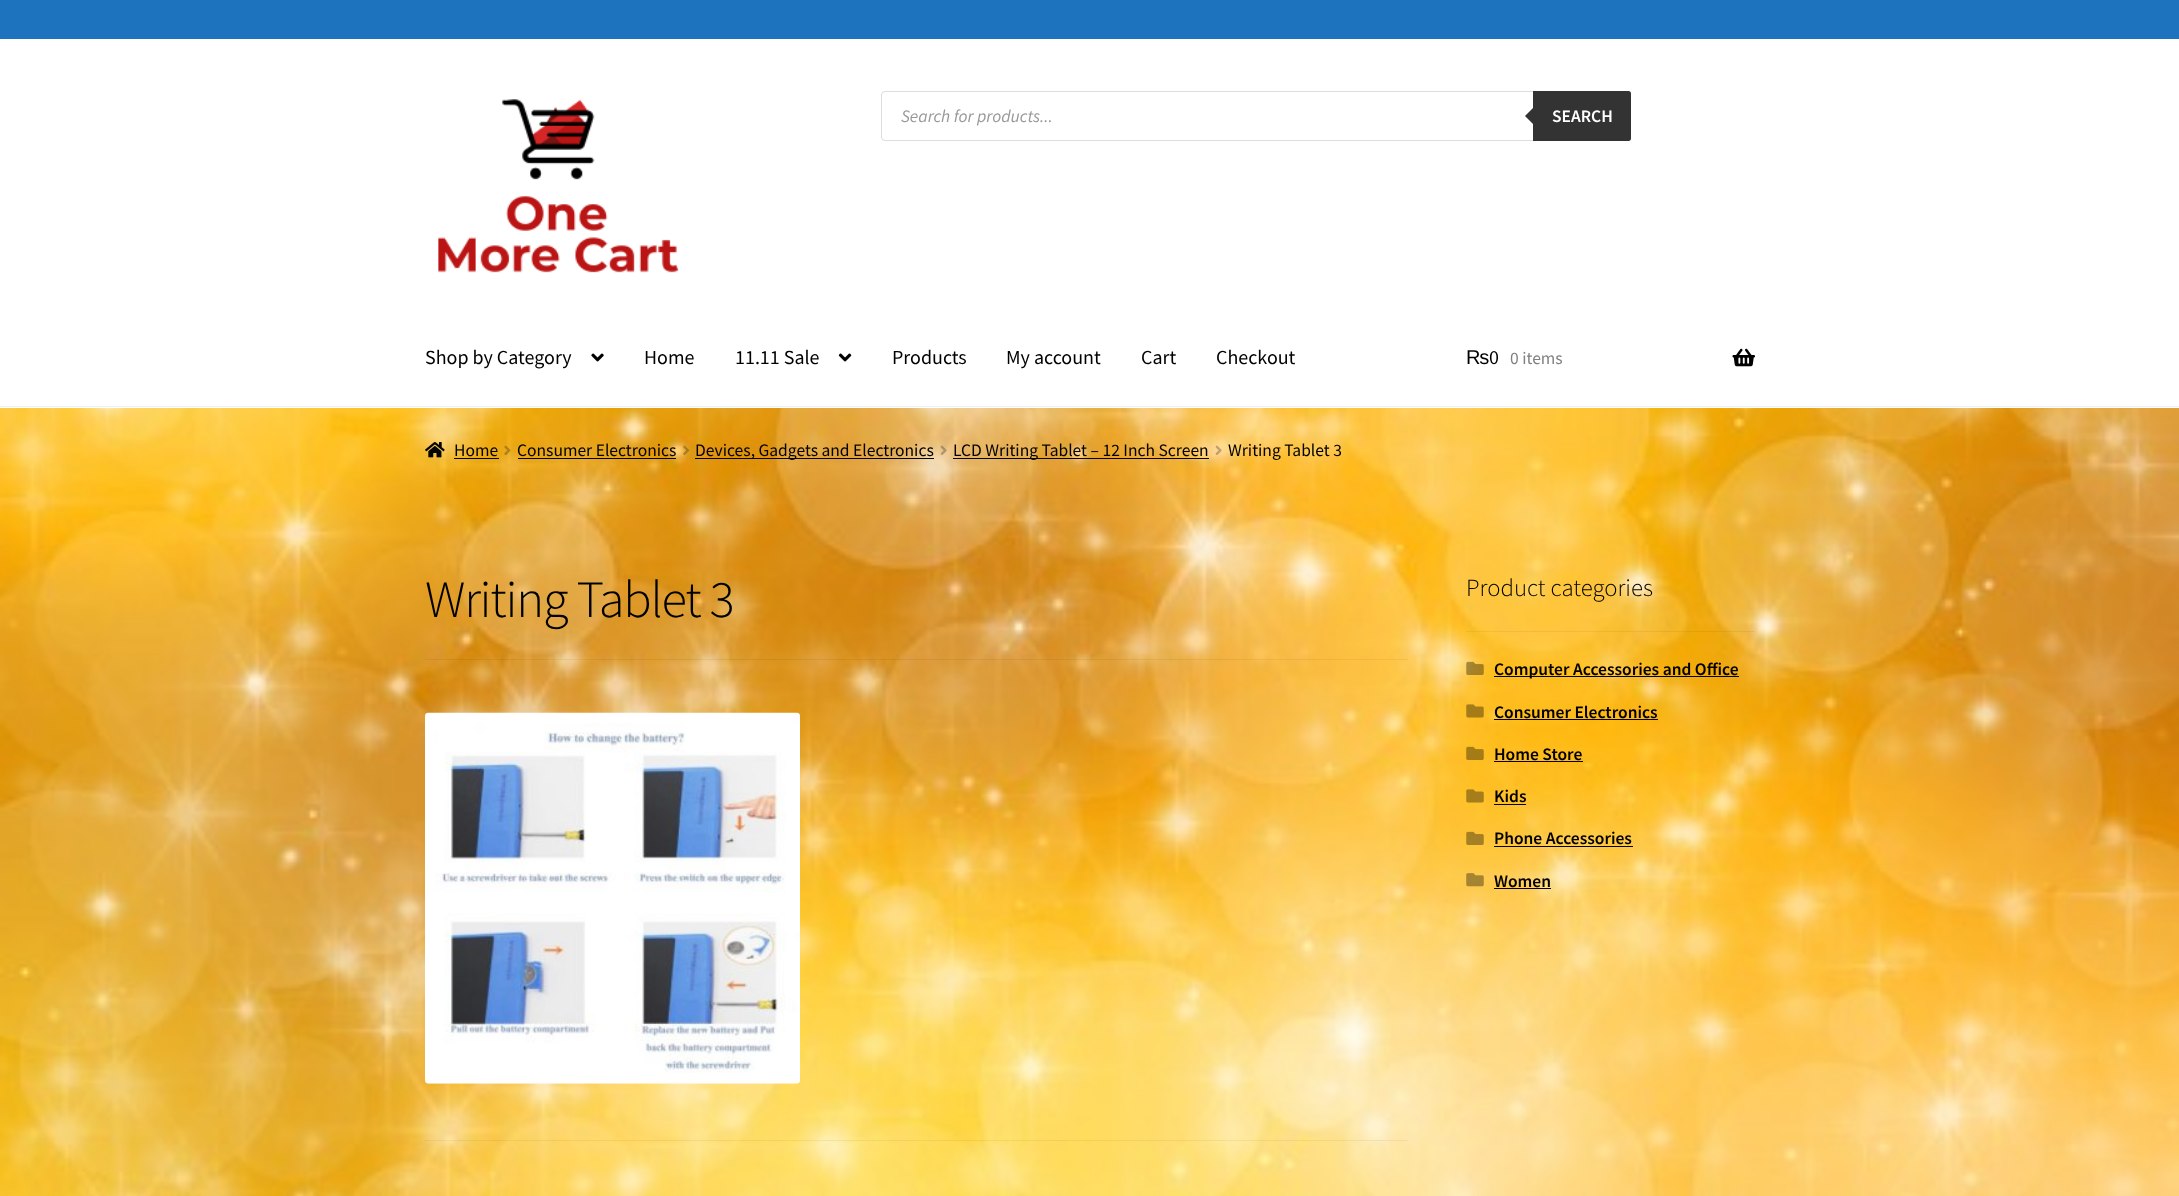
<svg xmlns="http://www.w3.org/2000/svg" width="2179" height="1196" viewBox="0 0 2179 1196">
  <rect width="100%" height="100%" fill="#fff"/>
  <image x="0" y="408" width="2179" height="788" href="img/1.png"/>
  <path d="M0 0h2179v39H0z" fill="#1e73be"/>
  <path d="M0 406h2179v1H0z" fill="#f0f0f0"/>
  <image x="438" y="99" width="241" height="174" href="img/2.png"/>
  <rect x="881.5" y="91.5" width="749" height="49" rx="3.5" fill="none" stroke="#ddd"/>
  <path d="M1533 91H1628.5C1630 91 1631 92 1631 93.5V138.5C1631 140 1630 141 1628.5 141H1533Z" fill="#333"/>
  <path d="M1535 106V126L1525 116Z" fill="#333"/>
  <image x="591" y="353" width="13" height="9" href="img/3.png"/>
  <image x="838" y="353" width="14" height="9" href="img/4.png"/>
  <image x="1732" y="348" width="23" height="19" href="img/5.png"/>
  <image x="425" y="442" width="20" height="16" href="img/6.png"/>
  <path d="M454 458h45v1H454z" fill="#050505"/>
  <image x="504" y="445" width="7" height="10" href="img/7.png"/>
  <path d="M518 458h158v1H518z" fill="#050505"/>
  <image x="683" y="445" width="7" height="10" href="img/8.png"/>
  <path d="M695 458h239v1H695z" fill="#050505"/>
  <image x="940" y="445" width="7" height="10" href="img/9.png"/>
  <path d="M953 458h256v1H953z" fill="#050505"/>
  <image x="1215" y="445" width="7" height="10" href="img/10.png"/>
  <path d="M425 659h983v1H425z" fill="#0000000d"/>
  <image x="425" y="712" width="375" height="372" href="img/11.png"/>
  <path d="M425 1140h983v1H425z" fill="#0000000d"/>
  <path d="M1466 631h289v1H1466z" fill="#0000000d"/>
  <image x="1466" y="661" width="18" height="14" href="img/12.png"/>
  <path d="M1494 676h245v1H1494z" fill="#050505"/>
  <image x="1466" y="704" width="18" height="14" href="img/13.png"/>
  <path d="M1494 719h164v1H1494z" fill="#050505"/>
  <image x="1466" y="746" width="18" height="14" href="img/14.png"/>
  <path d="M1494 761h89v1H1494z" fill="#050505"/>
  <image x="1466" y="789" width="18" height="14" href="img/15.png"/>
  <path d="M1494 804h32v1H1494z" fill="#050505"/>
  <image x="1466" y="831" width="18" height="14" href="img/16.png"/>
  <path d="M1494 846h139v1H1494z" fill="#050505"/>
  <image x="1466" y="873" width="18" height="14" href="img/17.png"/>
  <path d="M1494 888h57v1H1494z" fill="#050505"/>
  <text x="901" y="122" font-family="Source Sans Pro" font-size="17.5" font-style="italic" fill="#999">Search for products...</text>
  <text x="1552" y="122" font-family="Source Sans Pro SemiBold" font-size="17.5" font-weight="600" fill="#fff">SEARCH</text>
  <g font-family="Source Sans Pro" font-size="20" fill="#000">
    <text x="425" y="364">Shop by Category</text>
    <text x="644" y="364">Home</text>
    <text x="735" y="364">11.11 Sale</text>
    <text x="892" y="364">Products</text>
    <text x="1006" y="364">My account</text>
    <text x="1141" y="364">Cart</text>
    <text x="1216" y="364">Checkout</text>
  </g>
  <text x="1466" y="364" font-family="Liberation Sans" font-size="20" fill="#000">₨</text>
  <text x="1489" y="364" font-family="Source Sans Pro" font-size="20" fill="#000">0</text>
  <text x="1510" y="364" font-family="Source Sans Pro" font-size="17.5" fill="#808080">0 items</text>
  <g font-family="Source Sans Pro" font-size="17.5" fill="#000">
    <text x="454" y="456">Home</text>
    <text x="517" y="456">Consumer Electronics</text>
    <text x="695" y="456">Devices, Gadgets and Electronics</text>
    <text x="953" y="456">LCD Writing Tablet – 12 Inch Screen</text>
    <text x="1228" y="456">Writing Tablet 3</text>
  </g>
  <text x="425" y="617" font-family="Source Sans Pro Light" font-size="52.5" font-weight="300" letter-spacing="-1.25" fill="#000">Writing Tablet 3</text>
  <text x="1466" y="596" font-family="Source Sans Pro Light" font-size="24.75" font-weight="300" fill="#000">Product categories</text>
  <g font-family="Source Sans Pro SemiBold" font-size="17.5" font-weight="600" fill="#000">
    <text x="1494" y="675">Computer Accessories and Office</text>
    <text x="1494" y="718">Consumer Electronics</text>
    <text x="1494" y="760">Home Store</text>
    <text x="1494" y="802">Kids</text>
    <text x="1494" y="844">Phone Accessories</text>
    <text x="1494" y="887">Women</text>
  </g>
</svg>
